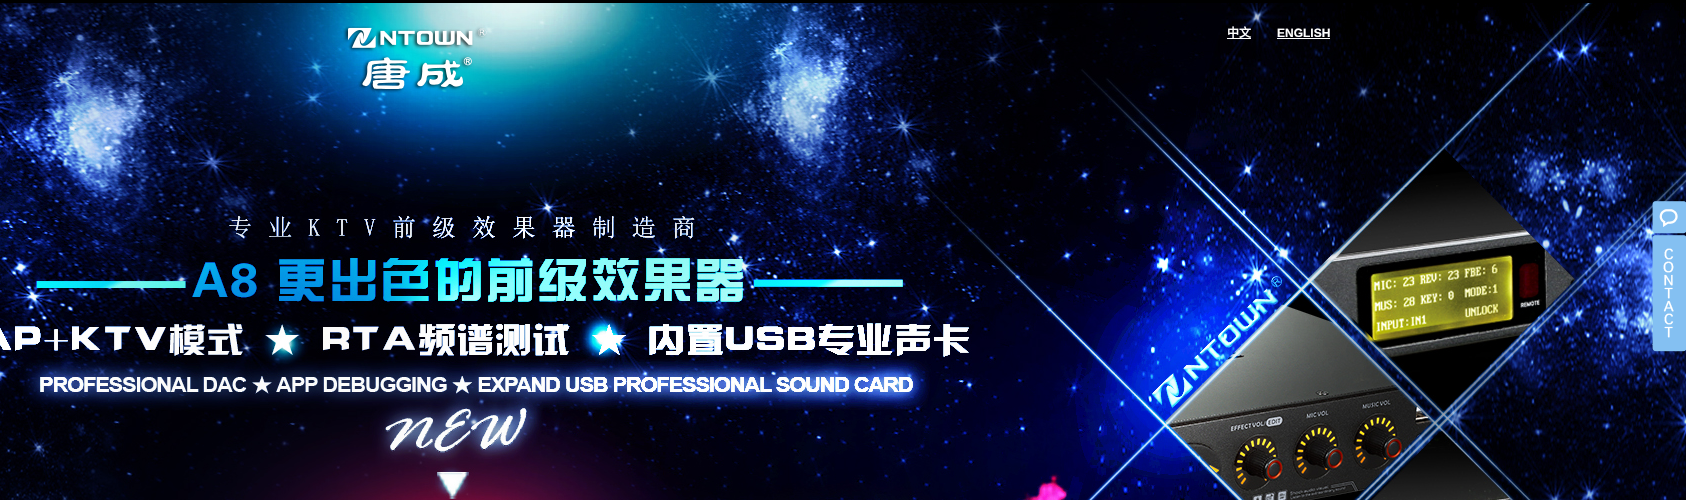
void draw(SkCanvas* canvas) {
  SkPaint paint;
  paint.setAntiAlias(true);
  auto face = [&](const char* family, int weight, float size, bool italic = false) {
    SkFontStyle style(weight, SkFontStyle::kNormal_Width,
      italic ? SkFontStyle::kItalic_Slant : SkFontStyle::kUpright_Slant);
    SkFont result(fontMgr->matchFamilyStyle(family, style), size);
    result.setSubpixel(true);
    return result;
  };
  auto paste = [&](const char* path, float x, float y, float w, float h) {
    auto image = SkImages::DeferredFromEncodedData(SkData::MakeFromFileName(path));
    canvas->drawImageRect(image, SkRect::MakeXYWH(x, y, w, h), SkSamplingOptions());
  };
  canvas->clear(0xff000000);
  paste("img/1.png", 0, 3, 1686, 497);
  paste("img/2.png", 343, 26, 144, 67);
  paint.setColor(0xffffffff);
  canvas->drawRect(SkRect::MakeXYWH(1227, 38, 24, 1), paint);
  canvas->drawRect(SkRect::MakeXYWH(1277, 38, 53, 1), paint);
  paste("img/3.png", 1652, 201, 34, 151);
  auto f0 = face("Noto Sans CJK SC", 700, 12);
  canvas->drawString("中文", 1227, 37, f0, paint);
  auto f1 = face("Liberation Sans", 700, 12);
  canvas->drawString("ENGLISH", 1277, 37, f1, paint);
}
